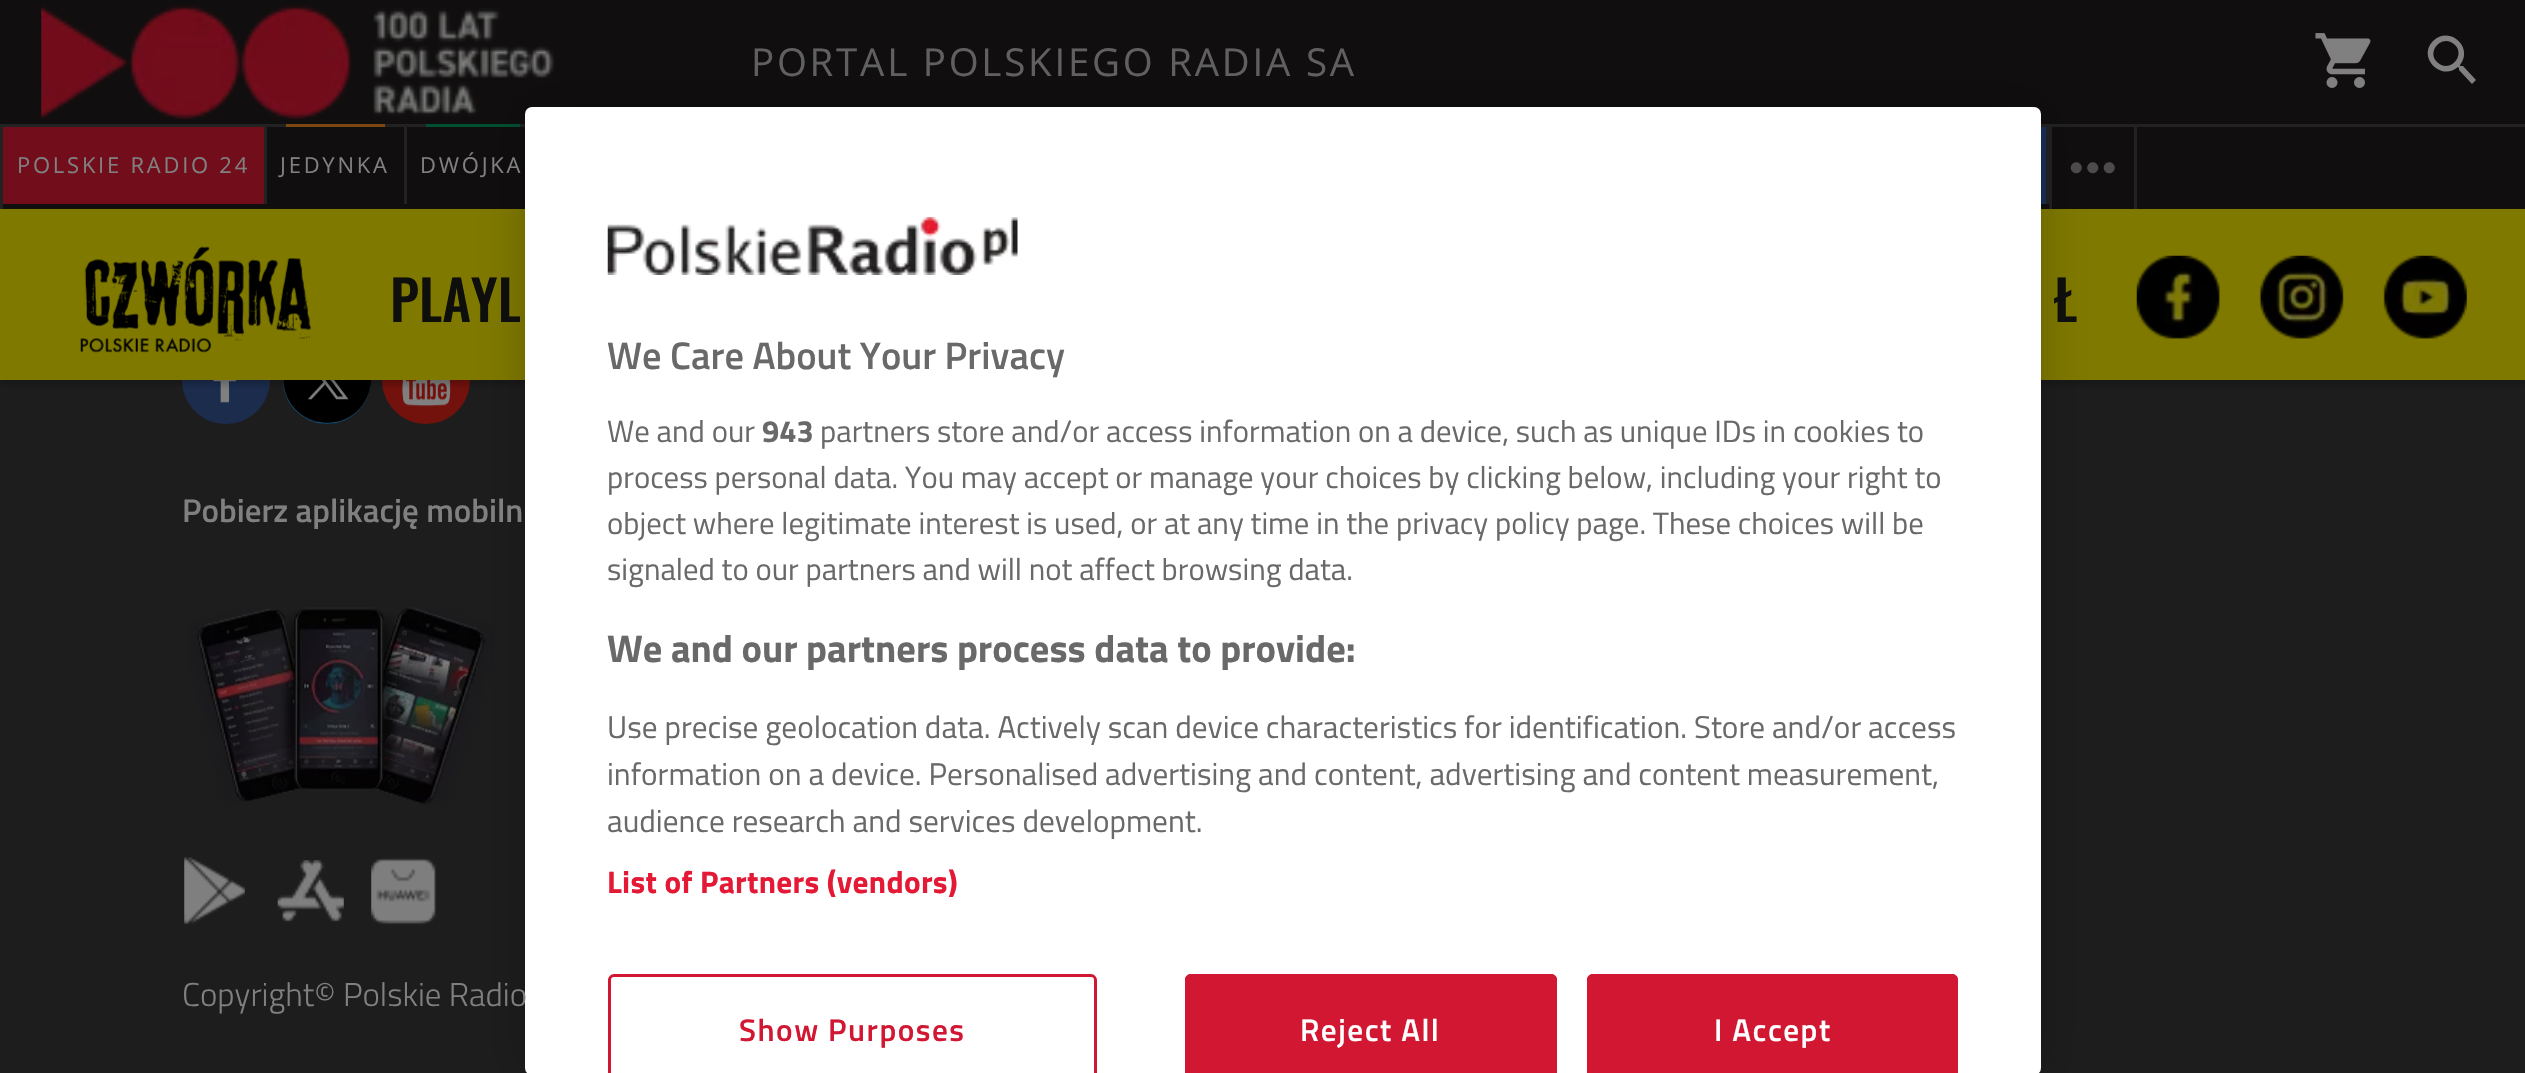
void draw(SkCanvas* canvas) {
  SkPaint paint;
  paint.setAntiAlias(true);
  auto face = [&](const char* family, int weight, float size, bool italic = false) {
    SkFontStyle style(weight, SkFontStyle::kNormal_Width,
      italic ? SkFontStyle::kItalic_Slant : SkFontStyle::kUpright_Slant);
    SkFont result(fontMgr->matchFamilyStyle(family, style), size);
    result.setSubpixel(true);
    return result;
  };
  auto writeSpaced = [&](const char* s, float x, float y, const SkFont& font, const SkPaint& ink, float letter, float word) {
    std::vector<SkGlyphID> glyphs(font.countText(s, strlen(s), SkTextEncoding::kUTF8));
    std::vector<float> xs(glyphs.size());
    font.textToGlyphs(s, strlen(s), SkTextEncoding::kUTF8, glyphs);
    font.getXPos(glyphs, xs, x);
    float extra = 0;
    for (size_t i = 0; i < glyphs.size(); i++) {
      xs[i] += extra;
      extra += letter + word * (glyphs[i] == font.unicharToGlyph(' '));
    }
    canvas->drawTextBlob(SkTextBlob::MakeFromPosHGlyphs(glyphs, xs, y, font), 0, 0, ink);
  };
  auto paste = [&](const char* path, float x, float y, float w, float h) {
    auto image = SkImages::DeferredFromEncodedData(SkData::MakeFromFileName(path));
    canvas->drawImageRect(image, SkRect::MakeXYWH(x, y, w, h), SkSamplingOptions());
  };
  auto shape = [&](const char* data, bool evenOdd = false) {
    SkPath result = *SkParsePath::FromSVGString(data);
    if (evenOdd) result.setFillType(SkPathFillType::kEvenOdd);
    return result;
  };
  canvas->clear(0xff1d1d1d);
  paint.setColor(0xff1b2c4d);
  canvas->drawCircle(226, 380, 44, paint);
  paste("img/8.png", 213, 380, 24, 23);
  paint.setColor(0xff0f5179);
  canvas->drawCircle(327, 380, 44, paint);
  paste("img/9.png", 283, 380, 89, 44);
  paint.setColor(0xff73110c);
  canvas->drawCircle(426, 380, 44, paint);
  paste("img/10.png", 402, 380, 49, 27);
  paint.setColor(0x33000000);
  paint.setMaskFilter(SkMaskFilter::MakeBlur(kNormal_SkBlurStyle, 3));
  canvas->drawRect(SkRect::MakeXYWH(0, 6, 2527, 379), paint);
  paint.setMaskFilter(nullptr);
  paint.setColor(0xff100e0e);
  canvas->drawRect(SkRect::MakeXYWH(0, 0, 2525, 209), paint);
  paint.setColor(0xff222222);
  canvas->drawRect(SkRect::MakeXYWH(0, 124, 2525, 3), paint);
  paste("img/1.png", 41, 5, 514, 114);
  paste("img/2.png", 2315, 33, 56, 55);
  paint.setColor(0xff808080);
  canvas->drawPath(shape("M2437 62C2449 74 2466 56 2455 45C2443 33 2426 51 2437 62ZM2463 66L2476 80L2472 84L2459 70V68L2458 67C2441 82 2417 57 2433 41C2450 25 2474 48 2460 65V66Z"), paint);
  {
    const struct { float x, y, w, h; SkColor color; } items[] = {
      {0, 127, 3, 82, 0xff222222},
      {3, 127, 261, 77, 0xff720d1b},
      {264, 127, 3, 77, 0xff222222},
      {404, 127, 3, 77, 0xff222222},
      {286, 124, 99, 3, 0xff7b470f},
      {426, 124, 94, 3, 0xff004f31},
      {2041, 127, 5, 77, 0xff182e5a},
      {2046, 127, 3, 77, 0xff222222},
      {2134, 127, 3, 82, 0xff222222},
      {2049, 127, 3, 82, 0xff222222},
    };
    for (auto [x, y, w, h, color] : items) {
      paint.setColor(color);
      canvas->drawRect(SkRect::MakeXYWH(x, y, w, h), paint);
    }
  }
  paste("img/3.png", 2070, 162, 45, 12);
  paint.setColor(0xff807900);
  canvas->drawRect(SkRect::MakeXYWH(0, 209, 2525, 171), paint);
  paste("img/4.png", 80, 246, 231, 107);
  paste("img/5.png", 2136, 255, 84, 84);
  paste("img/6.png", 2259, 255, 85, 84);
  paste("img/7.png", 2383, 255, 84, 84);
  paste("img/11.png", 186, 607, 309, 199);
  paste("img/12.png", 184, 857, 61, 68);
  paste("img/13.png", 277, 860, 67, 62);
  paste("img/14.png", 371, 857, 65, 68);
  paint.setColor(0x33000000);
  paint.setMaskFilter(SkMaskFilter::MakeBlur(kNormal_SkBlurStyle, 25));
  canvas->drawRoundRect(SkRect::MakeXYWH(525, 107, 1516, 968), 7, 7, paint);
  paint.setMaskFilter(nullptr);
  paint.setColor(0xffffffff);
  canvas->drawRoundRect(SkRect::MakeXYWH(525, 107, 1516, 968), 7, 7, paint);
  paste("img/15.png", 607, 217, 411, 58);
  paint.setColor(0xffd21733);
  canvas->drawPath(shape("M614 974C611 974 608 977 608 980V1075H611V980C611 978 612 977 614 977H1091C1093 977 1094 978 1094 980V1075H1097V980C1097 977 1094 974 1091 974Z"), paint);
  canvas->drawPath(shape("M1191 974H1551C1554.5 974 1557 976.5 1557 980V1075H1185V980C1185 976.5 1187.5 974 1191 974Z"), paint);
  canvas->drawPath(shape("M1191 974C1188 974 1185 977 1185 980V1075H1188V980C1188 978 1189 977 1191 977H1551C1553 977 1554 978 1554 980V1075H1557V980C1557 977 1554 974 1551 974Z"), paint);
  canvas->drawPath(shape("M1593 974H1952C1955.5 974 1958 976.5 1958 980V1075H1587V980C1587 976.5 1589.5 974 1593 974Z"), paint);
  canvas->drawPath(shape("M1593 974C1590 974 1587 977 1587 980V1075H1590V980C1590 978 1591 977 1593 977H1952C1954 977 1955 978 1955 980V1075H1958V980C1958 977 1955 974 1952 974Z"), paint);
  auto f0 = face("Open Sans", 400, 38.5f);
  paint.setColor(0xff606060);
  writeSpaced("PORTAL POLSKIEGO RADIA SA", 751, 76, f0, paint, 2.75f, 0);
  auto f1 = face("Open Sans", 400, 22);
  paint.setColor(0xff808080);
  {
    const struct { const char* s; float x, y; } items[] = {
      {"POLSKIE RADIO 24", 17, 173},
      {"JEDYNKA", 280, 173},
      {"DWÓJKA", 420, 173},
    };
    for (auto [s, x, y] : items) {
      writeSpaced(s, x, y, f1, paint, 2.75f, 0);
    }
  }
  auto f2 = face("Oswald", 500, 55);
  paint.setColor(0xff0e0e0d);
  canvas->drawString("PLAYL", 390, 322, f2, paint);
  canvas->drawString("Ł", 2054, 322, f2, paint);
  auto f3 = face("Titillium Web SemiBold", 600, 33);
  paint.setColor(0xff808080);
  canvas->drawString("Pobierz aplikację mobiln", 182, 522, f3, paint);
  auto f4 = face("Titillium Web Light", 300, 33);
  canvas->drawString("Copyright© Polskie Radio", 182, 1006, f4, paint);
  auto f5 = face("Titillium Web SemiBold", 600, 38.5f);
  paint.setColor(0xff696969);
  canvas->drawString("We Care About Your Privacy", 607, 369, f5, paint);
  auto f6 = face("Titillium Web", 400, 30.8f);
  canvas->drawString("We and our", 607, 442, f6, paint);
  auto f7 = face("Titillium Web", 700, 30.8f);
  canvas->drawString("943", 762, 442, f7, paint);
  {
    const struct { const char* s; float x, y; } items[] = {
      {"partners store and/or access information on a device, such as unique IDs in cookies to", 820, 442},
      {"process personal data. You may accept or manage your choices by clicking below, including your right to", 607, 488},
      {"object where legitimate interest is used, or at any time in the privacy policy page. These choices will be", 607, 534},
      {"signaled to our partners and will not affect browsing data.", 607, 580},
    };
    for (auto [s, x, y] : items) {
      canvas->drawString(s, x, y, f6, paint);
    }
  }
  auto f8 = face("Titillium Web", 700, 38.5f);
  canvas->drawString("We and our partners process data to provide:", 607, 662, f8, paint);
  auto f9 = face("Titillium Web", 400, 31.3f);
  {
    const struct { const char* s; float x, y; } items[] = {
      {"Use precise geolocation data. Actively scan device characteristics for identification. Store and/or access", 607, 738},
      {"information on a device. Personalised advertising and content, advertising and content measurement,", 607, 785},
      {"audience research and services development.", 607, 832},
    };
    for (auto [s, x, y] : items) {
      canvas->drawString(s, x, y, f9, paint);
    }
  }
  auto f10 = face("Titillium Web", 700, 31.3f);
  paint.setColor(0xffe31936);
  writeSpaced("List of Partners (vendors)", 607, 893, f10, paint, 0.3f, 0);
  auto f11 = face("Titillium Web SemiBold", 600, 31.3f);
  paint.setColor(0xffd21733);
  writeSpaced("Show Purposes", 739, 1041, f11, paint, 1.5f, 0);
  paint.setColor(0xffffffff);
  writeSpaced("Reject All", 1300, 1041, f11, paint, 1.5f, 0);
  writeSpaced("I Accept", 1714, 1041, f11, paint, 1.5f, 0);
}
